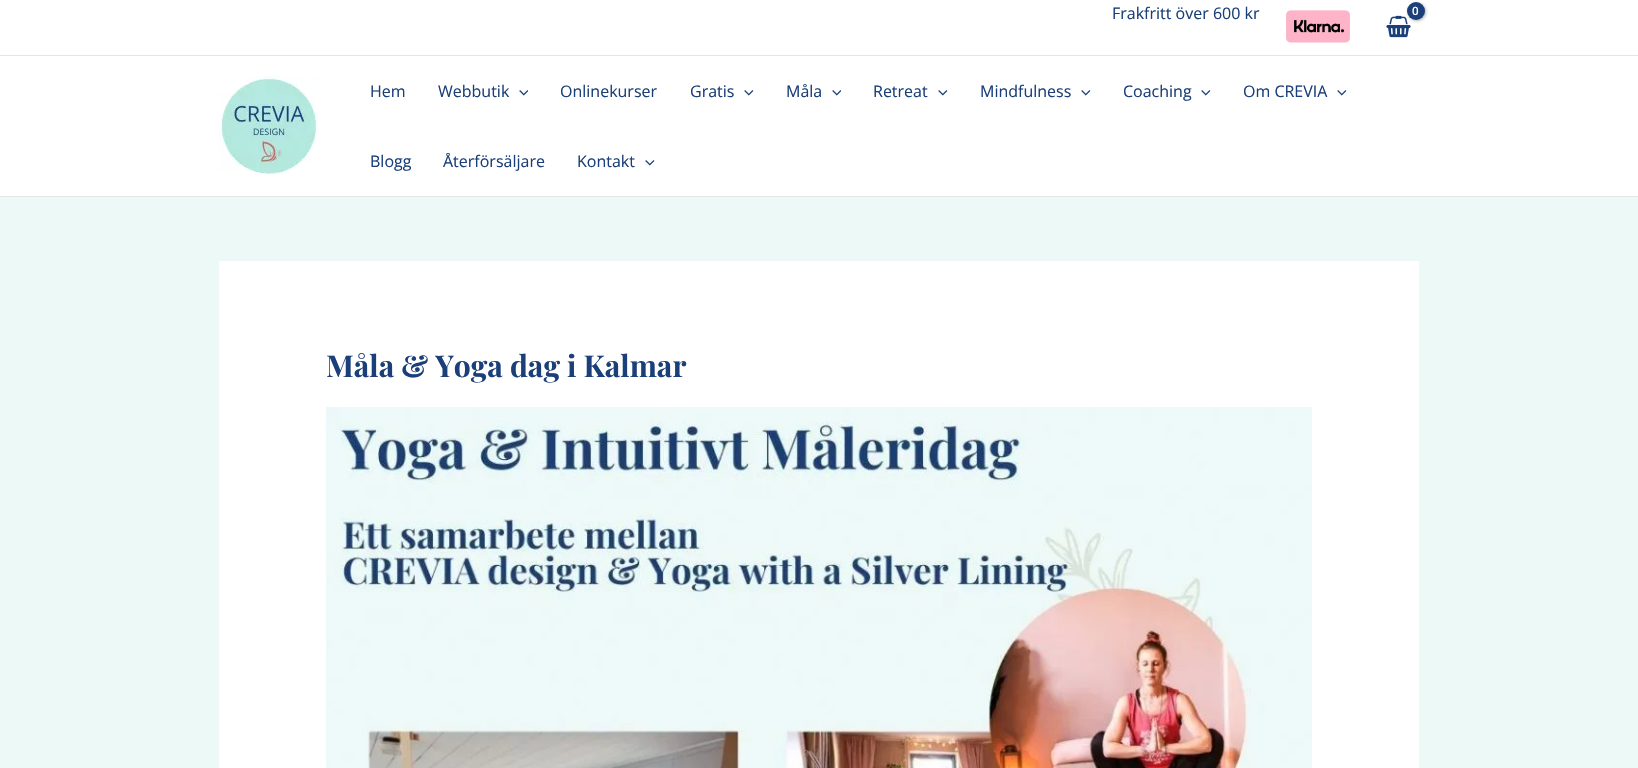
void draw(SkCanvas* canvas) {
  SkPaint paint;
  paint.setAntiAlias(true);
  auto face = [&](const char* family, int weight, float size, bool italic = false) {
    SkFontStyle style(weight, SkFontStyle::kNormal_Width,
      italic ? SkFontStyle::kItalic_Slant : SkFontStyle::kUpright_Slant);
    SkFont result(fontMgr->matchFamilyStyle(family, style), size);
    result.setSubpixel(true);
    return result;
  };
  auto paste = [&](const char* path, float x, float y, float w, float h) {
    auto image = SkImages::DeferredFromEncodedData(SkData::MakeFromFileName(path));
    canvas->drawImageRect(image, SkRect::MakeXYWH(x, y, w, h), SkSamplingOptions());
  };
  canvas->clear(0xffecf9f7);
  paint.setColor(0xffffffff);
  canvas->drawRect(SkRect::MakeXYWH(0, 0, 1638, 55), paint);
  paint.setColor(0xffe5e5e5);
  canvas->drawRect(SkRect::MakeXYWH(0, 55, 1638, 1), paint);
  paste("img/1.png", 1286, 10, 64, 33);
  paste("img/2.png", 1386, 15, 25, 23);
  paint.setColor(0x4d000000);
  paint.setMaskFilter(SkMaskFilter::MakeBlur(kNormal_SkBlurStyle, 1.5f));
  canvas->drawRoundRect(SkRect::MakeXYWH(1408, 3, 18, 18), 9, 9, paint);
  paint.setMaskFilter(nullptr);
  paint.setColor(0xff1b4079);
  canvas->drawCircle(1416, 11, 9, paint);
  paint.setColor(0xffffffff);
  canvas->drawRect(SkRect::MakeXYWH(0, 56, 1638, 140), paint);
  paint.setColor(0xffe5e5e5);
  canvas->drawRect(SkRect::MakeXYWH(0, 196, 1638, 1), paint);
  paste("img/3.png", 219, 76, 99, 99);
  paste("img/4.png", 519, 90, 9, 6);
  paste("img/5.png", 744, 90, 10, 6);
  paste("img/4.png", 832, 90, 9, 6);
  paste("img/5.png", 938, 90, 10, 6);
  paste("img/5.png", 1081, 90, 10, 6);
  paste("img/5.png", 1201, 90, 10, 6);
  paste("img/5.png", 1337, 90, 10, 6);
  paste("img/5.png", 645, 160, 10, 6);
  paint.setColor(0xffffffff);
  canvas->drawRect(SkRect::MakeXYWH(219, 261, 1200, 507), paint);
  paste("img/6.png", 326, 407, 986, 361);
  auto f0 = face("Open Sans", 400, 16);
  paint.setColor(0xff1b4079);
  canvas->drawString("Frakfritt över 600 kr", 1112, 19, f0, paint);
  auto f1 = face("Open Sans", 700, 11);
  paint.setColor(0xffffffff);
  canvas->drawString("0", 1412, 15, f1, paint);
  paint.setColor(0xff1b4079);
  {
    const struct { const char* s; float x, y; } items[] = {
      {"Hem", 370, 97},
      {"Webbutik", 438, 97},
      {"Onlinekurser", 560, 97},
      {"Gratis", 690, 97},
      {"Måla", 786, 97},
      {"Retreat", 873, 97},
      {"Mindfulness", 980, 97},
      {"Coaching", 1123, 97},
      {"Om CREVIA", 1243, 97},
      {"Blogg", 370, 167},
      {"Återförsäljare", 443, 167},
      {"Kontakt", 577, 167},
    };
    for (auto [s, x, y] : items) {
      canvas->drawString(s, x, y, f0, paint);
    }
  }
  auto f2 = face("Playfair Display", 700, 30);
  canvas->drawString("Måla & Yoga dag i Kalmar", 326, 377, f2, paint);
}
